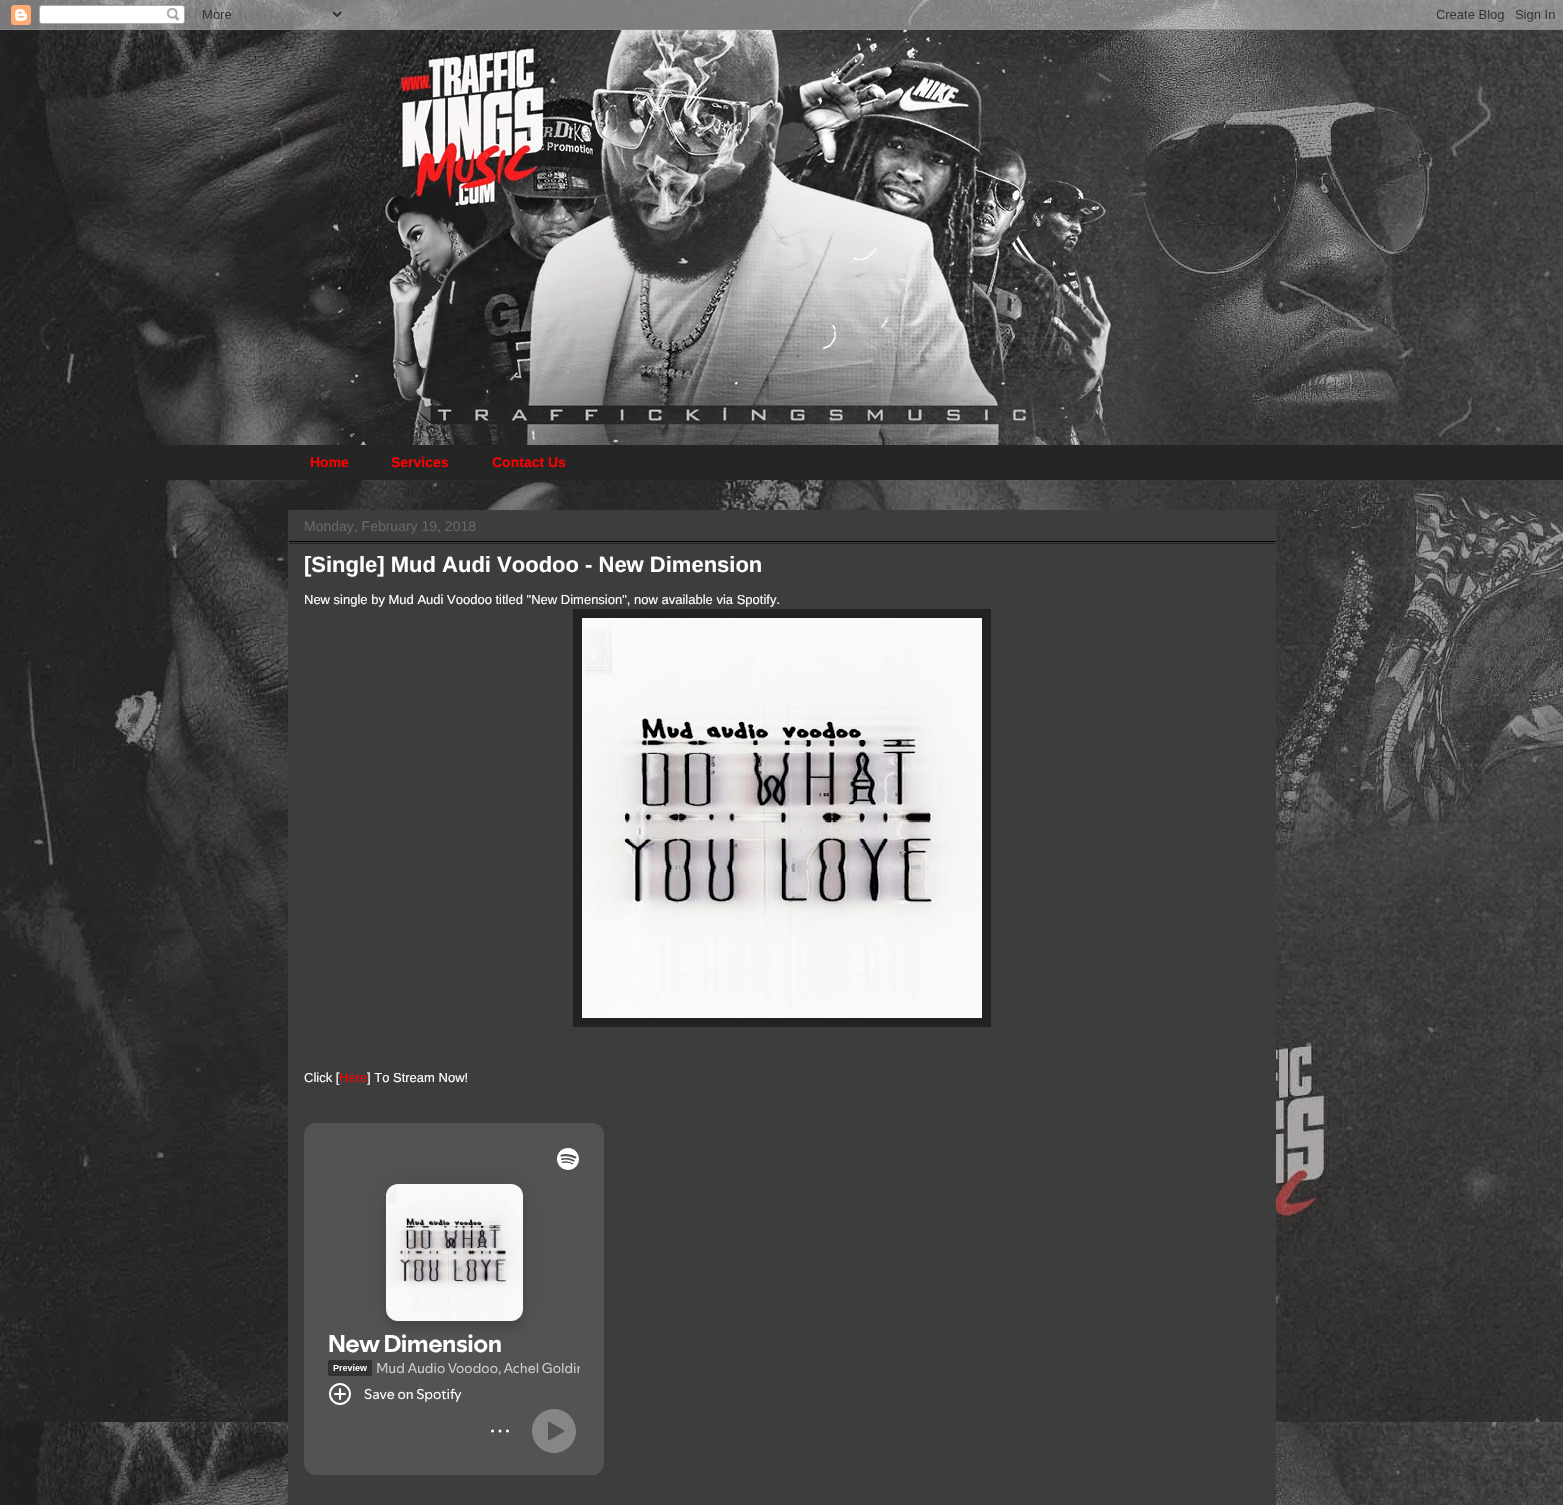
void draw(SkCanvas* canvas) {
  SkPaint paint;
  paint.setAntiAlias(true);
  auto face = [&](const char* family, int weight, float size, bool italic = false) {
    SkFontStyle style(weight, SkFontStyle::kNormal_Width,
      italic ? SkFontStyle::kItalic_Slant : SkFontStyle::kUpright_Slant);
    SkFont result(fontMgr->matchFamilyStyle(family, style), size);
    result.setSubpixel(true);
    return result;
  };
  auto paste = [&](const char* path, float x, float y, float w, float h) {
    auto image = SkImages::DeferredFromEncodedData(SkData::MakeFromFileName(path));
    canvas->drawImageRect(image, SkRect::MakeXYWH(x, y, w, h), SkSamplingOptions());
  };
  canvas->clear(0xffffffff);
  paste("img/1.png", 0, 0, 1563, 1505);
  paste("img/2.png", 0, 0, 1563, 30);
  paste("img/3.png", 290, 30, 896, 415);
  {
    const struct { float x, y, w, h; SkColor color; } items[] = {
      {0, 445, 1563, 35, 0xff262525},
      {288, 510, 988, 995, 0xff3d3d3d},
      {289, 541, 986, 1, 0xff000000},
      {289, 543, 986, 1, 0xff222222},
      {573, 609, 418, 418, 0xff222222},
    };
    for (auto [x, y, w, h, color] : items) {
      paint.setColor(color);
      canvas->drawRect(SkRect::MakeXYWH(x, y, w, h), paint);
    }
  }
  paste("img/4.png", 582, 618, 400, 400);
  paste("img/5.png", 304, 1123, 300, 352);
  auto f0 = face("Liberation Sans", 700, 14);
  paint.setColor(0xffff0000);
  {
    const struct { const char* s; float x, y; } items[] = {
      {"Home", 310, 467},
      {"Services", 391, 467},
      {"Contact Us", 492, 467},
    };
    for (auto [s, x, y] : items) {
      canvas->drawString(s, x, y, f0, paint);
    }
  }
  auto f1 = face("Liberation Sans", 400, 14);
  paint.setColor(0xff666666);
  canvas->drawString("Monday, February 19, 2018", 304, 531, f1, paint);
  auto f2 = face("Liberation Sans", 700, 22);
  paint.setColor(0xffffffff);
  canvas->drawString("[Single] Mud Audi Voodoo - New Dimension", 304, 572, f2, paint);
  auto f3 = face("Liberation Sans", 400, 13);
  canvas->drawString("New single by Mud Audi Voodoo titled \"New Dimension\", now available via Spotify.", 304, 604, f3, paint);
  canvas->drawString("Click [", 304, 1082, f3, paint);
  paint.setColor(0xffff0000);
  canvas->drawString("Here", 339, 1082, f3, paint);
  paint.setColor(0xffffffff);
  canvas->drawString("] To Stream Now!", 367, 1082, f3, paint);
}
